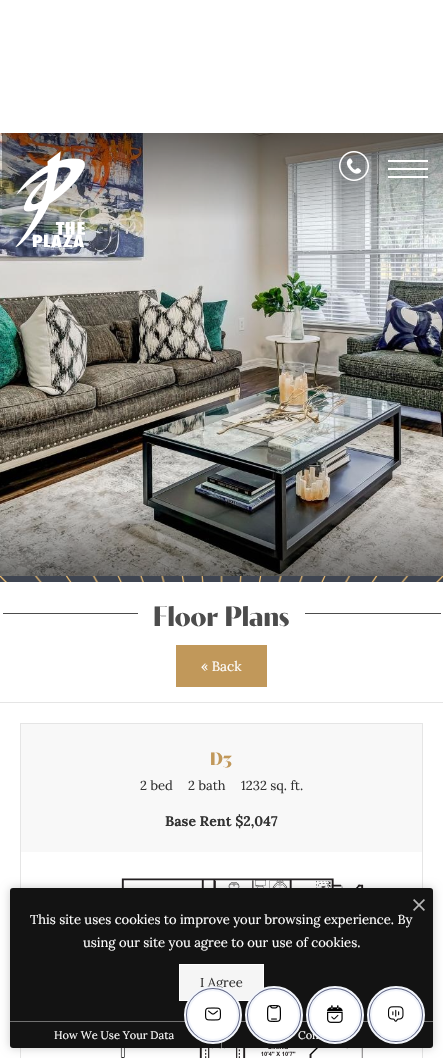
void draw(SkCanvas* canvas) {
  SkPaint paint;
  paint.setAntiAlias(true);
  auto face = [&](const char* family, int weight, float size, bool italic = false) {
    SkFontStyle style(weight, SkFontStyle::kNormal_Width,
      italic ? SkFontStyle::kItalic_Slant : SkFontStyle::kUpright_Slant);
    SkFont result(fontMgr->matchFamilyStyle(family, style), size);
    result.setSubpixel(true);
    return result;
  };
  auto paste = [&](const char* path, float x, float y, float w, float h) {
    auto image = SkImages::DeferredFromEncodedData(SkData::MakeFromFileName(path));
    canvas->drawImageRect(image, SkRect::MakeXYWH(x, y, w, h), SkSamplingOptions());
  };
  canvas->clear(0xffffffff);
  paste("img/3.png", 0, 133, 443, 443);
  paste("img/4.png", 2, 133, 441, 440);
  paste("img/1.png", 15, 151, 70, 96);
  paste("img/2.png", 339, 151, 30, 30);
  {
    const struct { float x, y, w, h; SkColor color; } items[] = {
      {388, 160, 40, 2, 0xffffffff},
      {388, 168, 40, 2, 0xffffffff},
      {388, 176, 40, 2, 0xffffffff},
      {0, 702, 443, 1, 0xffe5e5e5},
    };
    for (auto [x, y, w, h, color] : items) {
      paint.setColor(color);
      canvas->drawRect(SkRect::MakeXYWH(x, y, w, h), paint);
    }
  }
  {
    const SkColor colors[] = {0x00000000, 0x80000000};
    const float stops[] = {0, 1};
    const SkPoint ends[] = {{222, 488}, {222, 576}};
    paint.setShader(SkGradientShader::MakeLinear(ends, colors, stops, 2, SkTileMode::kClamp));
    paint.setAlpha(255);
  }
  canvas->drawRect(SkRect::MakeXYWH(0, 492, 443, 84), paint);
  paste("img/5.png", 0, 576, 443, 6);
  paint.setShader(nullptr);
  {
    const struct { float x, y, w, h; SkColor color; } items[] = {
      {3, 613, 135, 1, 0xff4c4c4c},
      {305, 613, 136, 1, 0xff4c4c4c},
      {176, 645, 91, 42, 0xffc1985a},
    };
    for (auto [x, y, w, h, color] : items) {
      paint.setColor(color);
      canvas->drawRect(SkRect::MakeXYWH(x, y, w, h), paint);
    }
  }
  paint.setStroke(true);
  paint.setStrokeWidth(1);
  paint.setColor(0xffe5e5e5);
  canvas->drawRect(SkRect::MakeXYWH(20.5f, 723.5f, 402, 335), paint);
  paint.setStroke(false);
  paint.setColor(0xfff8f8f8);
  canvas->drawRect(SkRect::MakeXYWH(21, 724, 401, 128), paint);
  paste("img/6.png", 79, 878, 285, 180);
  paint.setColor(0x33000000);
  paint.setMaskFilter(SkMaskFilter::MakeBlur(kNormal_SkBlurStyle, 5));
  canvas->drawRoundRect(SkRect::MakeXYWH(10, 888, 423, 160), 3, 3, paint);
  paint.setMaskFilter(nullptr);
  paint.setColor(0xff131313);
  canvas->drawRoundRect(SkRect::MakeXYWH(10, 888, 423, 160), 3, 3, paint);
  paste("img/7.png", 413, 899, 12, 12);
  paint.setColor(0xfff5f5f5);
  canvas->drawRect(SkRect::MakeXYWH(179.5f, 964.5f, 84, 36), paint);
  paint.setStroke(true);
  paint.setColor(0xffffffff);
  canvas->drawRect(SkRect::MakeXYWH(179.5f, 964.5f, 84, 36), paint);
  paint.setStroke(false);
  paint.setColor(0xff717171);
  canvas->drawRect(SkRect::MakeXYWH(10, 1021, 423, 1), paint);
  canvas->drawRect(SkRect::MakeXYWH(221, 1042, 1, 6), paint);
  paint.setColor(0xff646987);
  canvas->drawCircle(396, 1015, 28, paint);
  paint.setStroke(true);
  paint.setStrokeWidth(2);
  paint.setColor(0xfff3f6fc);
  canvas->drawCircle(396, 1015, 28, paint);
  paint.setStroke(false);
  paint.setColor(0xffffffff);
  canvas->drawCircle(396, 1015, 25, paint);
  paint.setStroke(true);
  paint.setColor(0xfff3f6fc);
  canvas->drawCircle(396, 1015, 25, paint);
  paste("img/11.png", 388, 1006, 16, 16);
  auto f0 = face("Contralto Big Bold", 700, 28);
  paint.setStroke(false);
  paint.setColor(0xff4c4c4c);
  canvas->drawString("Floor Plans", 153, 626, f0, paint);
  auto f1 = face("Lora", 400, 13.5f);
  paint.setColor(0xffffffff);
  canvas->drawString("« Back", 201, 671, f1, paint);
  auto f2 = face("Contralto Big Bold", 700, 18);
  paint.setColor(0xffc1985a);
  canvas->drawString("D3", 210, 765, f2, paint);
  auto f3 = face("Lora", 400, 13);
  paint.setColor(0xff333333);
  {
    const struct { const char* s; float x, y; } items[] = {
      {"2 bed", 140, 790},
      {"2 bath", 188, 790},
      {"1232 sq. ft.", 241, 790},
    };
    for (auto [s, x, y] : items) {
      canvas->drawString(s, x, y, f3, paint);
    }
  }
  auto f4 = face("Lora", 700, 14);
  canvas->drawString("Base Rent $2,047", 165, 826, f4, paint);
  paint.setColor(0xffffffff);
  canvas->drawString("This site uses cookies to improve your browsing experience. By", 30, 924, f3, paint);
  canvas->drawString("using our site you agree to our use of cookies.", 83, 947, f3, paint);
  paint.setColor(0xff333333);
  canvas->drawString("I Agree", 200, 987, f3, paint);
  auto f5 = face("Lora", 400, 11);
  paint.setColor(0xffffffff);
  canvas->drawString("How We Use Your Data", 54, 1039, f5, paint);
  canvas->drawString("Con", 298, 1039, f5, paint);
  paint.setColor(0xff646987);
  canvas->drawCircle(213, 1015, 28, paint);
  paint.setStroke(true);
  paint.setColor(0xfff3f6fc);
  canvas->drawCircle(213, 1015, 28, paint);
  paint.setStroke(false);
  paint.setColor(0xffffffff);
  canvas->drawCircle(213, 1015, 25, paint);
  paint.setStroke(true);
  paint.setColor(0xfff3f6fc);
  canvas->drawCircle(213, 1015, 25, paint);
  paste("img/8.png", 205, 1007, 16, 14);
  paint.setStroke(false);
  paint.setColor(0xff646987);
  canvas->drawCircle(274, 1015, 28, paint);
  paint.setStroke(true);
  paint.setColor(0xfff3f6fc);
  canvas->drawCircle(274, 1015, 28, paint);
  paint.setStroke(false);
  paint.setColor(0xffffffff);
  canvas->drawCircle(274, 1015, 25, paint);
  paint.setStroke(true);
  paint.setColor(0xfff3f6fc);
  canvas->drawCircle(274, 1015, 25, paint);
  paste("img/9.png", 267, 1005, 14, 17);
  paint.setStroke(false);
  paint.setColor(0xff646987);
  canvas->drawCircle(335, 1015, 28, paint);
  paint.setStroke(true);
  paint.setColor(0xfff3f6fc);
  canvas->drawCircle(335, 1015, 28, paint);
  paint.setStroke(false);
  paint.setColor(0xffffffff);
  canvas->drawCircle(335, 1015, 25, paint);
  paint.setStroke(true);
  paint.setColor(0xfff3f6fc);
  canvas->drawCircle(335, 1015, 25, paint);
  paste("img/10.png", 327, 1005, 16, 18);
}
